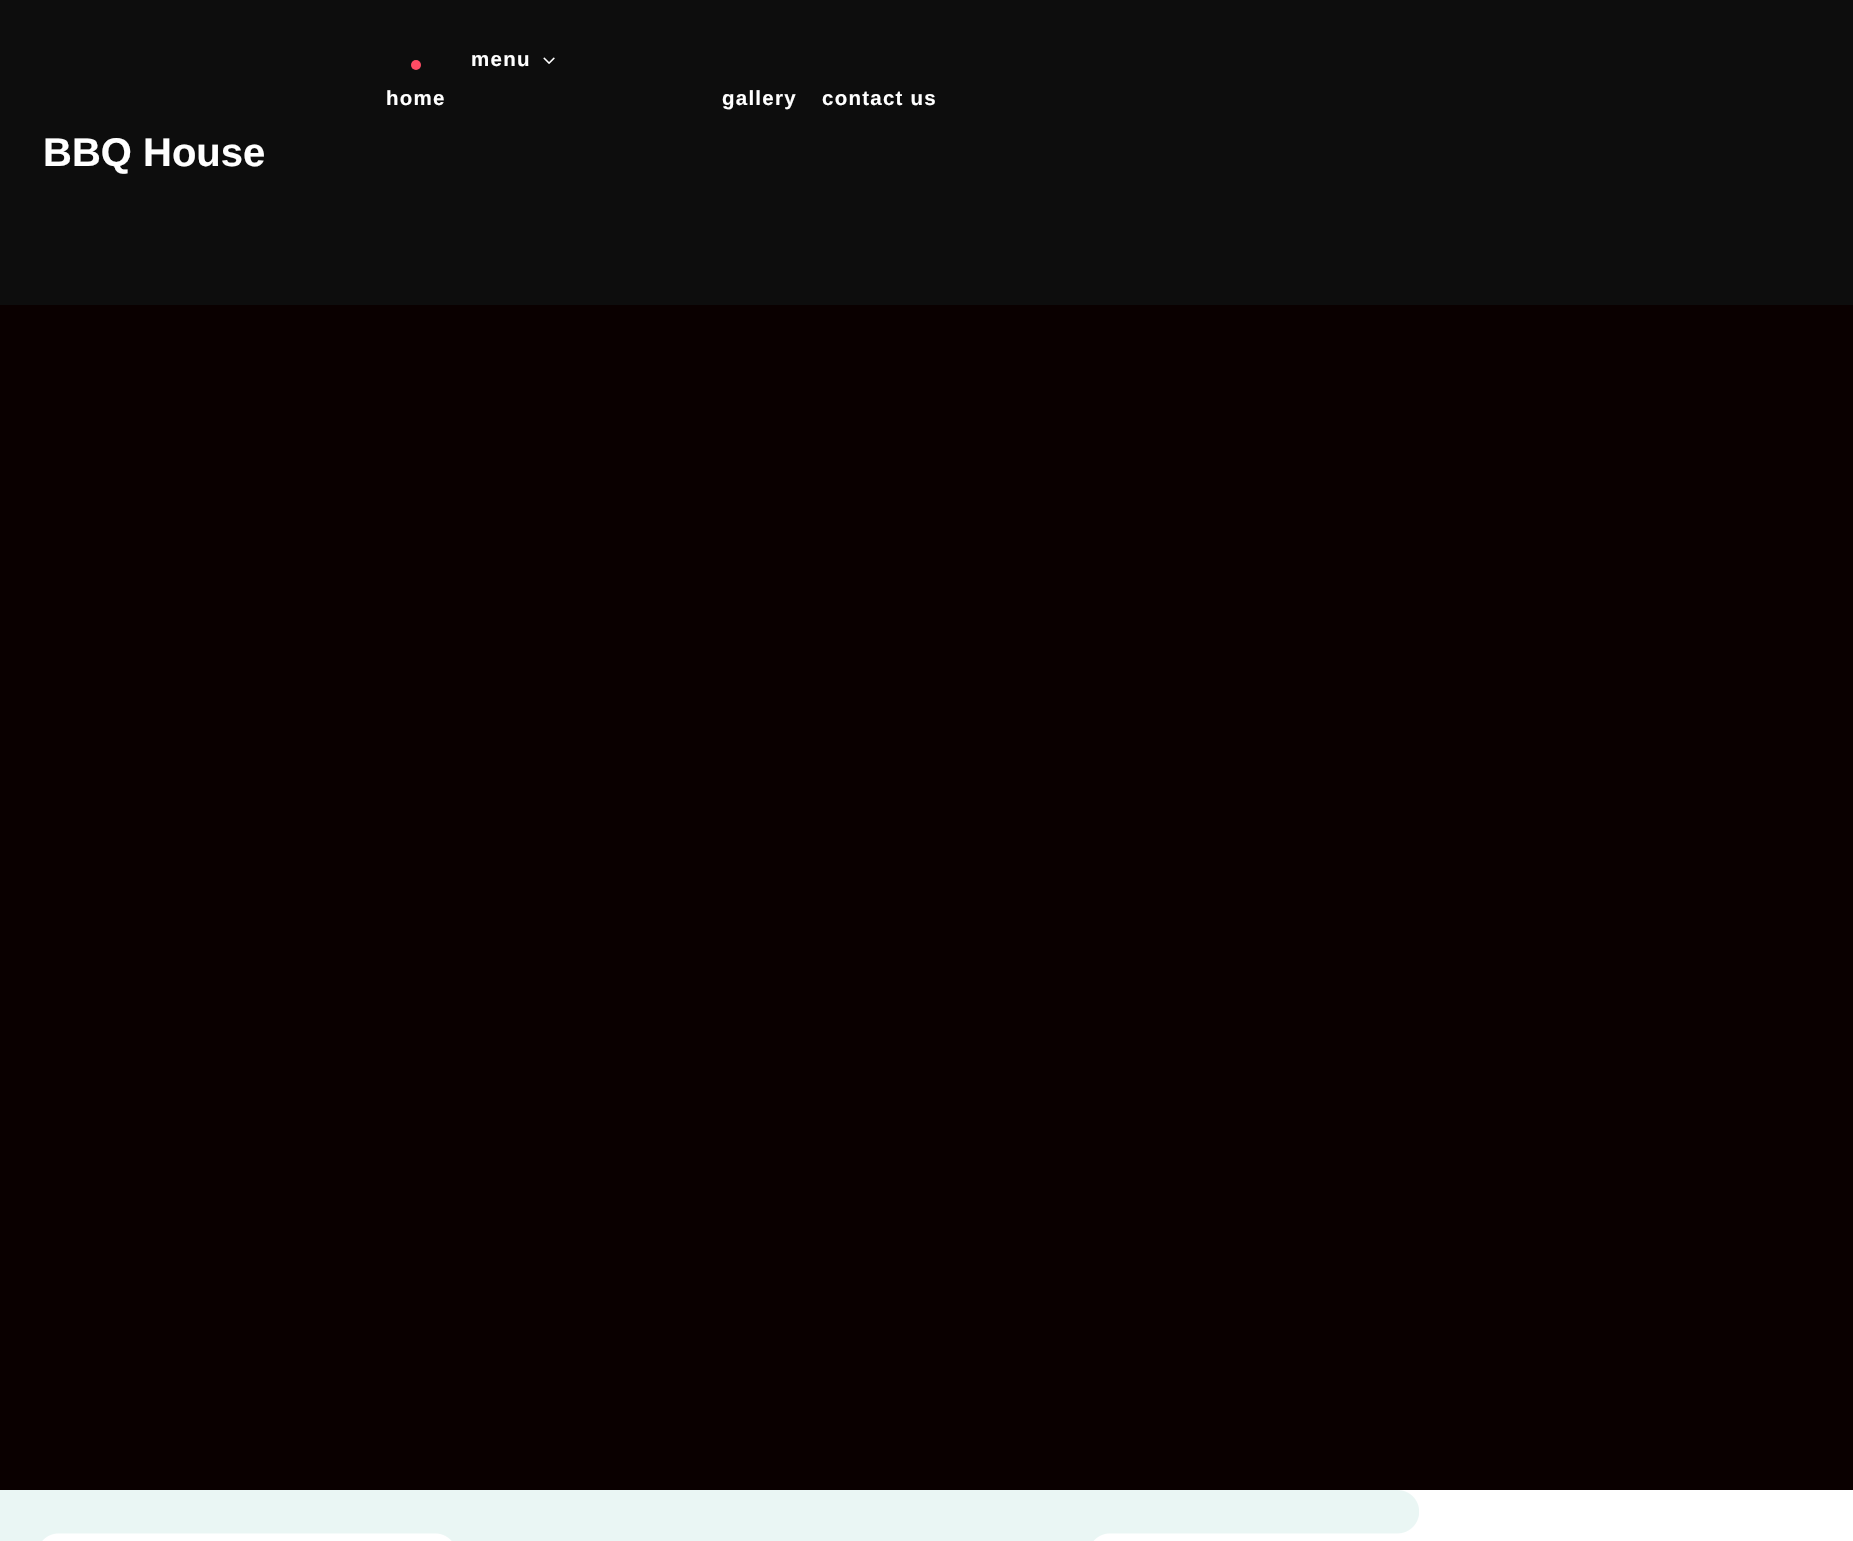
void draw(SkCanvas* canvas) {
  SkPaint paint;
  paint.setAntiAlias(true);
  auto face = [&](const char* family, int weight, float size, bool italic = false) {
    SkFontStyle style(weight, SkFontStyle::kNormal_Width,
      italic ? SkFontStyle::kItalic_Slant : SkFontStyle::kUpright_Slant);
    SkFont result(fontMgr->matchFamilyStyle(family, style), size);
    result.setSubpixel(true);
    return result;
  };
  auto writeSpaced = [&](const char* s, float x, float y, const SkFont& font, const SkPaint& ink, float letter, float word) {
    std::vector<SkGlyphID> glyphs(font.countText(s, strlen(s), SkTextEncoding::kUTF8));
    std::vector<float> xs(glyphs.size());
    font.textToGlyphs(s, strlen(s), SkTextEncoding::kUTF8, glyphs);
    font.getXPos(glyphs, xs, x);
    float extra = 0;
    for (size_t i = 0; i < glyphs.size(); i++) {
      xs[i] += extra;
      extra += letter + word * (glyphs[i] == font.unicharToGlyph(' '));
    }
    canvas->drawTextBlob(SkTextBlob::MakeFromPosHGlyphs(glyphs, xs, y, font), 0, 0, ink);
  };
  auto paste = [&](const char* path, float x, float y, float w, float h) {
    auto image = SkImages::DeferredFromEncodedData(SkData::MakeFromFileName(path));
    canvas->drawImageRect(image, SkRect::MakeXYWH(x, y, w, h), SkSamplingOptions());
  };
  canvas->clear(0xffffffff);
  paint.setColor(0xff0d0d0d);
  canvas->drawRect(SkRect::MakeXYWH(0, 0, 1853, 305), paint);
  paste("img/1.png", 543, 57, 12, 7);
  paint.setColor(0xffff4b64);
  canvas->drawCircle(416, 65, 5, paint);
  paint.setColor(0xff0a0000);
  canvas->drawRect(SkRect::MakeXYWH(0, 305, 1853, 1185), paint);
  paste("img/2.png", 0, 1490, 1419, 51);
  auto f0 = face("Liberation Sans", 700, 20.5f);
  paint.setColor(0xffffffff);
  {
    const struct { const char* s; float x, y; } items[] = {
      {"menu", 471, 66},
      {"home", 386, 105},
      {"gallery", 722, 105},
      {"contact us", 822, 105},
    };
    for (auto [s, x, y] : items) {
      writeSpaced(s, x, y, f0, paint, 1.25f, 0);
    }
  }
  auto f1 = face("Liberation Sans", 700, 40);
  canvas->drawString("BBQ House", 43, 166, f1, paint);
}
